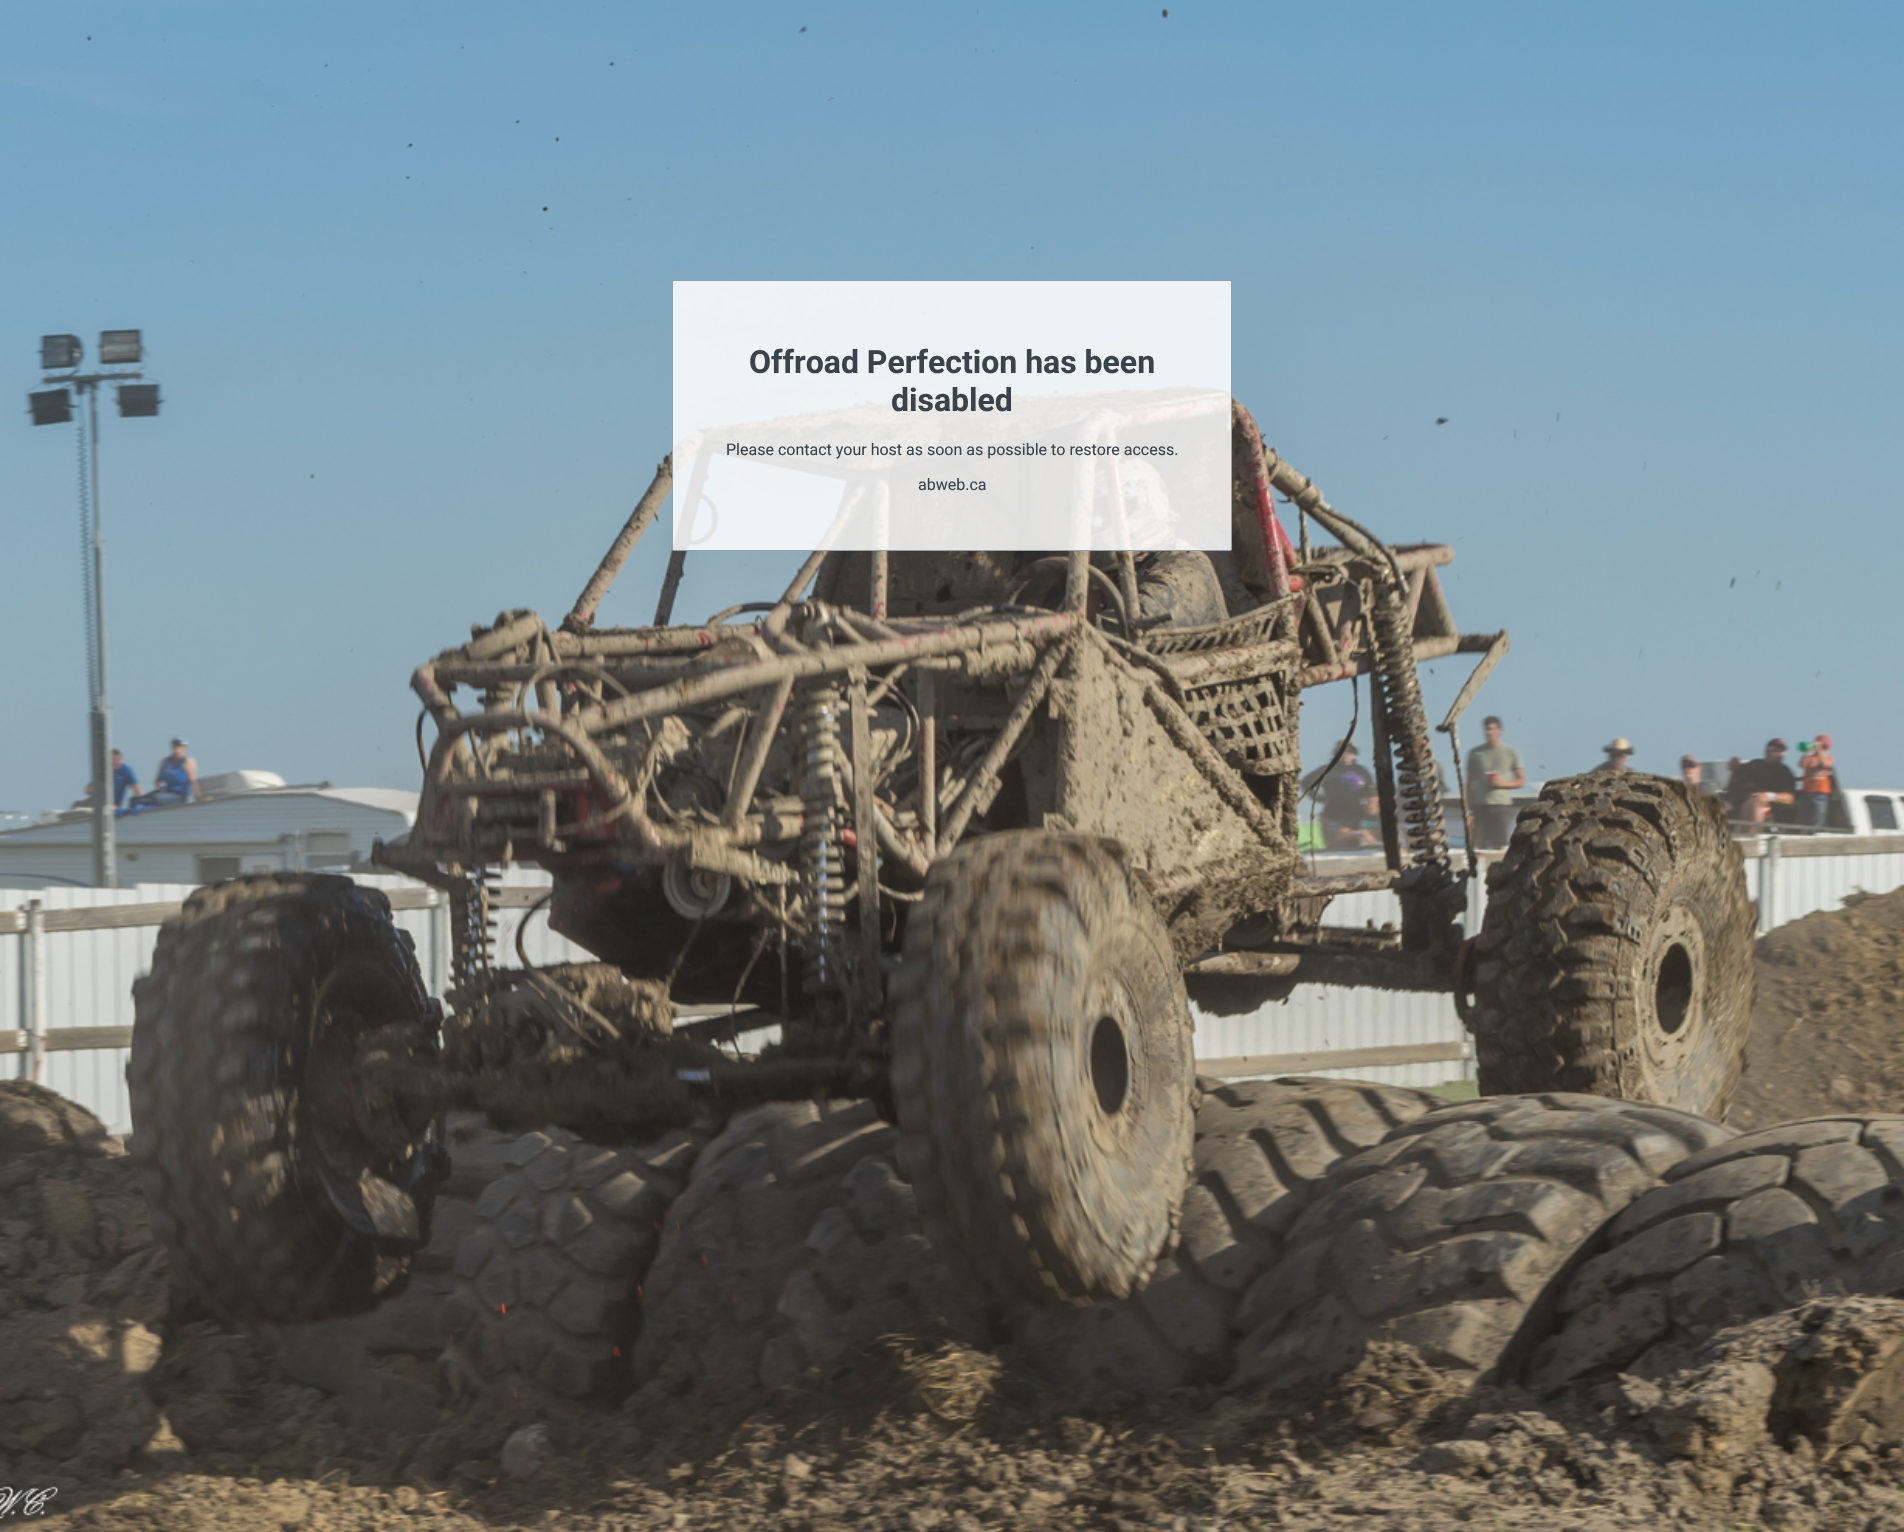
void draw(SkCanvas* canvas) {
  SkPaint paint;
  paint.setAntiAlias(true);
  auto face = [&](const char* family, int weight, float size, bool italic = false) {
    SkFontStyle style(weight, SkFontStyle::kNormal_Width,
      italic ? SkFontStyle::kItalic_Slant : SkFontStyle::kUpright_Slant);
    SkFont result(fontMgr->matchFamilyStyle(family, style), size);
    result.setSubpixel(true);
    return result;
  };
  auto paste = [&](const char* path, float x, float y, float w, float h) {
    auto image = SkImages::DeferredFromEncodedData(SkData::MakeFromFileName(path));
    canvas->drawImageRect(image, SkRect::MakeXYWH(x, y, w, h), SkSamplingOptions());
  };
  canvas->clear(0xffffffff);
  paste("img/1.png", 0, 0, 1904, 1532);
  paint.setColor(0xd9ffffff);
  canvas->drawRoundRect(SkRect::MakeXYWH(672.5f, 280.5f, 559, 270), 1.5f, 1.5f, paint);
  paint.setStroke(true);
  paint.setStrokeWidth(1);
  paint.setColor(0xff94a0ac);
  canvas->drawRoundRect(SkRect::MakeXYWH(672.5f, 280.5f, 559, 270), 1.5f, 1.5f, paint);
  auto f0 = face("Roboto", 700, 32);
  paint.setStroke(false);
  paint.setColor(0xff3a424a);
  canvas->drawString("Offroad Perfection has been", 749, 373, f0, paint);
  canvas->drawString("disabled", 891, 411, f0, paint);
  auto f1 = face("Roboto", 400, 16);
  canvas->drawString("Please contact your host as soon as possible to restore access.", 726, 455, f1, paint);
  canvas->drawString("abweb.ca", 918, 490, f1, paint);
}
